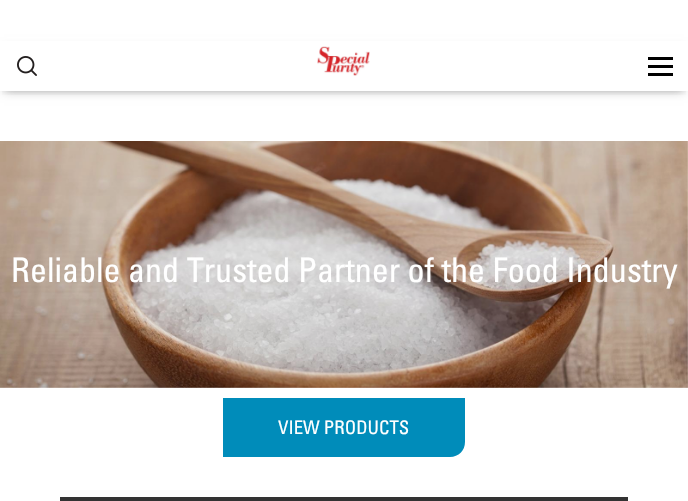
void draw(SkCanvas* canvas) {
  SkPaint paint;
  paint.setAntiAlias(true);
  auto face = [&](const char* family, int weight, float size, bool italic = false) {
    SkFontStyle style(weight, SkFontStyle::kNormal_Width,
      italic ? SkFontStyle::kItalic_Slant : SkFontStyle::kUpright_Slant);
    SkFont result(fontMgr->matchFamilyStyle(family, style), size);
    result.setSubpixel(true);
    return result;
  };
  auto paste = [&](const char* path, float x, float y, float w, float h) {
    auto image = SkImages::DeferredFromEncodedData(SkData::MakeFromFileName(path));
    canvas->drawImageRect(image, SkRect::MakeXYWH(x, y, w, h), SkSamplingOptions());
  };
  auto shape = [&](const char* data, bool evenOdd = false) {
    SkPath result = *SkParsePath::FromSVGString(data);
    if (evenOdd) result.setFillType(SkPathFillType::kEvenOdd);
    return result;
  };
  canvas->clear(0xffffffff);
  canvas->save();
  canvas->clipRect(SkRect::MakeXYWH(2, 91, 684, 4));
  paint.setColor(0x40000000);
  paint.setMaskFilter(SkMaskFilter::MakeBlur(kNormal_SkBlurStyle, 5));
  canvas->drawRect(SkRect::MakeXYWH(4, 46, 680, 42), paint);
  paint.setMaskFilter(nullptr);
  canvas->restore();
  paint.setMaskFilter(SkMaskFilter::MakeBlur(kNormal_SkBlurStyle, 5));
  canvas->drawRect(SkRect::MakeXYWH(4, 49, 680, 42), paint);
  paint.setMaskFilter(nullptr);
  paint.setColor(0xffffffff);
  canvas->drawRect(SkRect::MakeXYWH(0, 41, 688, 50), paint);
  paste("img/1.png", 17, 56, 20, 20);
  paste("img/2.png", 317, 46, 53, 30);
  {
    const struct { float x, y, w, h; SkColor color; } items[] = {
      {648, 65, 25, 3, 0xff000000},
      {648, 57, 25, 3, 0xff000000},
      {648, 73, 25, 3, 0xff000000},
      {7, 37, 674, 1, 0xffffffff},
    };
    for (auto [x, y, w, h, color] : items) {
      paint.setColor(color);
      canvas->drawRect(SkRect::MakeXYWH(x, y, w, h), paint);
    }
  }
  paste("img/3.png", 0, 141, 688, 247);
  paint.setColor(0xff008cba);
  canvas->drawPath(shape("M223 398H465V442C465 450.5 458.5 457 450 457H223Z"), paint);
  paint.setColor(0xff333333);
  canvas->drawRect(SkRect::MakeXYWH(60, 497, 568, 4), paint);
  auto f0 = face("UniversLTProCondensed", 400, 34);
  paint.setColor(0xffffffff);
  canvas->drawString("Reliable and Trusted Partner of the Food Industry", 11, 282, f0, paint);
  auto f1 = face("UniversLTProCondensed", 400, 18.75f);
  canvas->drawString("VIEW PRODUCTS", 278, 434, f1, paint);
}
